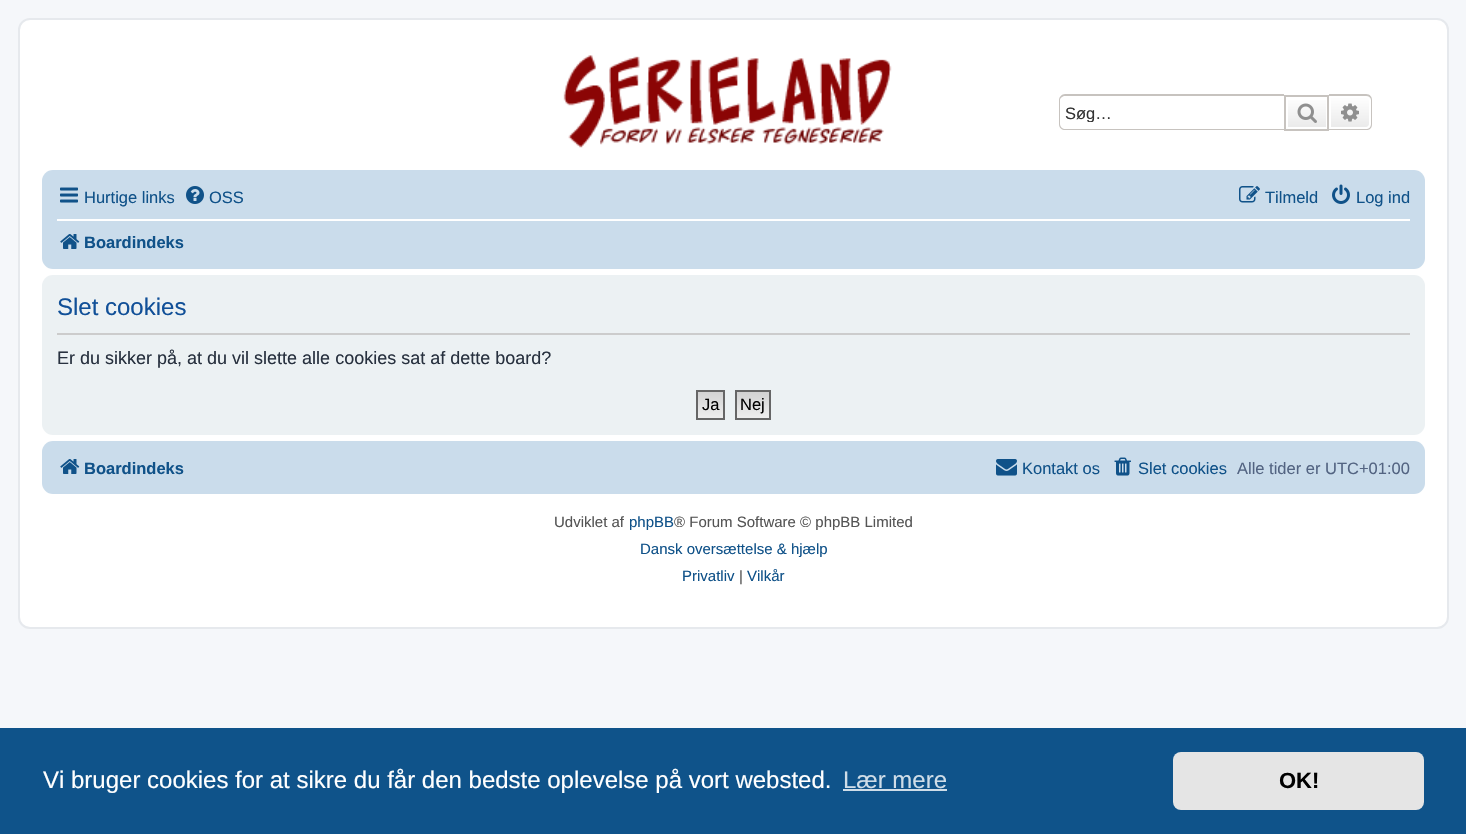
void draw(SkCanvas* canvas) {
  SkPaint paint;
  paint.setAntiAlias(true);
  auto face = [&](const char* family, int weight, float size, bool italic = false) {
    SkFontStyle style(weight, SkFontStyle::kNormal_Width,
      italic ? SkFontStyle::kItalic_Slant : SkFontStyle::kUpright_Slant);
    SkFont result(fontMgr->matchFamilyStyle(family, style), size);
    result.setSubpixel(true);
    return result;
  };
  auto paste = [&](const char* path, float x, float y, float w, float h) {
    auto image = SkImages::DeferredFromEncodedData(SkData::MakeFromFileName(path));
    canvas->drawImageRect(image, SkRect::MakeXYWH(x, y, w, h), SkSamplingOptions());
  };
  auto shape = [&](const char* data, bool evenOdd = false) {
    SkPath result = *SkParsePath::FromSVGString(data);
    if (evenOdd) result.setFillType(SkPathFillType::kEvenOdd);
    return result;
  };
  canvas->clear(0xfff5f7fa);
  paint.setColor(0xffffffff);
  canvas->drawRoundRect(SkRect::MakeXYWH(19, 19, 1429, 609), 11, 11, paint);
  paint.setStroke(true);
  paint.setStrokeWidth(2);
  paint.setColor(0xffe6e9ed);
  canvas->drawRoundRect(SkRect::MakeXYWH(19, 19, 1429, 609), 11, 11, paint);
  paste("img/1.png", 563, 55, 329, 93);
  paint.setStroke(false);
  paint.setColor(0xffc7c3bf);
  canvas->drawPath(shape("M1065 94H1284V130H1065C1062 130 1059 128 1059 124V100C1059 97 1062 94 1065 94ZM1065 96H1284V129H1065C1063 129 1060 127 1060 124V100C1060 98 1063 96 1065 96Z", true), paint);
  {
    const SkColor colors[] = {0xffffffff, 0xffe9e9e9};
    const float stops[] = {0, 1};
    const SkPoint ends[] = {{1307, 96}, {1307, 129}};
    paint.setShader(SkGradientShader::MakeLinear(ends, colors, stops, 2, SkTileMode::kClamp));
    paint.setAlpha(255);
  }
  canvas->drawRect(SkRect::MakeXYWH(1288, 100, 38, 27), paint);
  paint.setStroke(true);
  paint.setShader(nullptr);
  paint.setColor(0xffc7c3bf);
  canvas->drawRect(SkRect::MakeXYWH(1285, 96, 43, 34), paint);
  paste("img/2.png", 1297, 103, 20, 20);
  paint.setStroke(false);
  {
    const SkColor colors[] = {0xffffffff, 0xffe9e9e9};
    const float stops[] = {0, 1};
    const SkPoint ends[] = {{1350, 96}, {1350, 129}};
    paint.setShader(SkGradientShader::MakeLinear(ends, colors, stops, 2, SkTileMode::kClamp));
    paint.setAlpha(255);
  }
  canvas->drawPath(shape("M1330 97H1366C1368 97 1370 99 1370 101V124C1370 126 1368 128 1366 128H1330Z"), paint);
  paint.setStroke(true);
  paint.setShader(nullptr);
  paint.setColor(0xffffffff);
  canvas->drawPath(shape("M1330 97H1366C1368 97 1370 99 1370 101V124C1370 126 1368 128 1366 128H1330Z"), paint);
  paint.setStroke(false);
  paint.setColor(0xffc7c3bf);
  canvas->drawPath(shape("M1329 94H1366C1370 94 1372 97 1372 100V124C1372 128 1370 130 1366 130H1329ZM1329 96H1366C1369 96 1371 98 1371 100V124C1371 127 1369 129 1366 129H1329Z", true), paint);
  paste("img/3.png", 1341, 103, 18, 19);
  paint.setColor(0xffcadceb);
  canvas->drawRoundRect(SkRect::MakeXYWH(42, 170, 1383, 99), 11, 11, paint);
  paste("img/4.png", 60, 187, 18, 16);
  paste("img/5.png", 186, 186, 18, 18);
  paste("img/6.png", 1239, 186, 21, 17);
  paste("img/7.png", 1332, 184, 18, 20);
  paint.setColor(0xffffffff);
  canvas->drawRect(SkRect::MakeXYWH(57, 219, 1353, 2), paint);
  paste("img/8.png", 60, 234, 20, 15);
  paint.setColor(0xffecf1f3);
  canvas->drawRoundRect(SkRect::MakeXYWH(42, 275, 1383, 160), 11, 11, paint);
  paint.setColor(0xffcccccc);
  canvas->drawRect(SkRect::MakeXYWH(57, 333, 1353, 2), paint);
  {
    const SkColor colors[] = {0xffd2d2d2, 0xffefefef};
    const float stops[] = {0, 1};
    const SkPoint ends[] = {{710, 392}, {710, 419}};
    paint.setShader(SkGradientShader::MakeLinear(ends, colors, stops, 2, SkTileMode::kClamp));
    paint.setAlpha(255);
  }
  canvas->drawRect(SkRect::MakeXYWH(698, 392, 25, 26), paint);
  paint.setStroke(true);
  paint.setShader(nullptr);
  paint.setColor(0xff666666);
  canvas->drawRect(SkRect::MakeXYWH(697, 391, 27, 28), paint);
  paint.setStroke(false);
  {
    const SkColor colors[] = {0xffd2d2d2, 0xffefefef};
    const float stops[] = {0, 1};
    const SkPoint ends[] = {{753, 392}, {753, 419}};
    paint.setShader(SkGradientShader::MakeLinear(ends, colors, stops, 2, SkTileMode::kClamp));
    paint.setAlpha(255);
  }
  canvas->drawRect(SkRect::MakeXYWH(737, 392, 32, 26), paint);
  paint.setStroke(true);
  paint.setShader(nullptr);
  paint.setColor(0xff666666);
  canvas->drawRect(SkRect::MakeXYWH(736, 391, 34, 28), paint);
  paint.setStroke(false);
  paint.setColor(0xffcadceb);
  canvas->drawRoundRect(SkRect::MakeXYWH(42, 441, 1383, 53), 11, 11, paint);
  paste("img/8.png", 60, 459, 20, 15);
  paste("img/9.png", 996, 459, 21, 17);
  paste("img/10.png", 1114, 457, 17, 19);
  paint.setColor(0xff0f538a);
  canvas->drawRect(SkRect::MakeXYWH(0, 728, 1466, 106), paint);
  paint.setColor(0xffcfdde8);
  canvas->drawRect(SkRect::MakeXYWH(843, 789, 104, 2), paint);
  paint.setColor(0xffe5e5e5);
  canvas->drawRoundRect(SkRect::MakeXYWH(1173, 752, 251, 58), 8, 8, paint);
  canvas->save();
  canvas->clipRect(SkRect::MakeXYWH(1065, 104, 209, 18));
  auto f0 = face("Liberation Sans", 400, 16.5f);
  paint.setColor(0xff333333);
  canvas->drawString("Søg…", 1065, 119, f0, paint);
  canvas->restore();
  paint.setColor(0xff105289);
  {
    const struct { const char* s; float x, y; } items[] = {
      {"Hurtige links", 84, 203},
      {"OSS", 209, 203},
      {"Tilmeld", 1265, 203},
      {"Log ind", 1356, 203},
    };
    for (auto [s, x, y] : items) {
      canvas->drawString(s, x, y, f0, paint);
    }
  }
  auto f1 = face("Liberation Sans", 700, 16.5f);
  canvas->drawString("Boardindeks", 84, 248, f1, paint);
  auto f2 = face("Liberation Sans", 400, 24);
  paint.setColor(0xff115098);
  canvas->drawString("Slet cookies", 57, 315, f2, paint);
  auto f3 = face("Liberation Sans", 400, 18);
  paint.setColor(0xff28313f);
  canvas->drawString("Er du sikker på, at du vil slette alle cookies sat af dette board?", 57, 364, f3, paint);
  paint.setColor(0xff000000);
  canvas->drawString("Ja", 702, 410, f0, paint);
  canvas->drawString("Nej", 740, 410, f0, paint);
  paint.setColor(0xff105289);
  canvas->drawString("Boardindeks", 84, 474, f1, paint);
  canvas->drawString("Kontakt os", 1022, 474, f0, paint);
  canvas->drawString("Slet cookies", 1138, 474, f0, paint);
  paint.setColor(0xff536482);
  canvas->drawString("Alle tider er UTC+01:00", 1237, 474, f0, paint);
  auto f4 = face("Liberation Sans", 400, 15);
  paint.setColor(0xff555555);
  canvas->drawString("Udviklet af", 554, 527, f4, paint);
  paint.setColor(0xff105289);
  canvas->drawString("phpBB", 629, 527, f4, paint);
  paint.setColor(0xff555555);
  canvas->drawString("® Forum Software © phpBB Limited", 674, 527, f4, paint);
  paint.setColor(0xff105289);
  canvas->drawString("Dansk oversættelse & hjælp", 640, 554, f4, paint);
  canvas->drawString("Privatliv", 682, 581, f4, paint);
  paint.setColor(0xff555555);
  canvas->drawString("|", 739, 581, f4, paint);
  paint.setColor(0xff105289);
  canvas->drawString("Vilkår", 747, 581, f4, paint);
  paint.setColor(0xffffffff);
  canvas->drawString("Vi bruger cookies for at sikre du får den bedste oplevelse på vort websted.", 43, 788, f2, paint);
  paint.setColor(0xffcfdde8);
  canvas->drawString("Lær mere", 843, 788, f2, paint);
  auto f5 = face("Liberation Sans", 700, 22);
  paint.setColor(0xff000000);
  canvas->drawString("OK!", 1279, 788, f5, paint);
}
